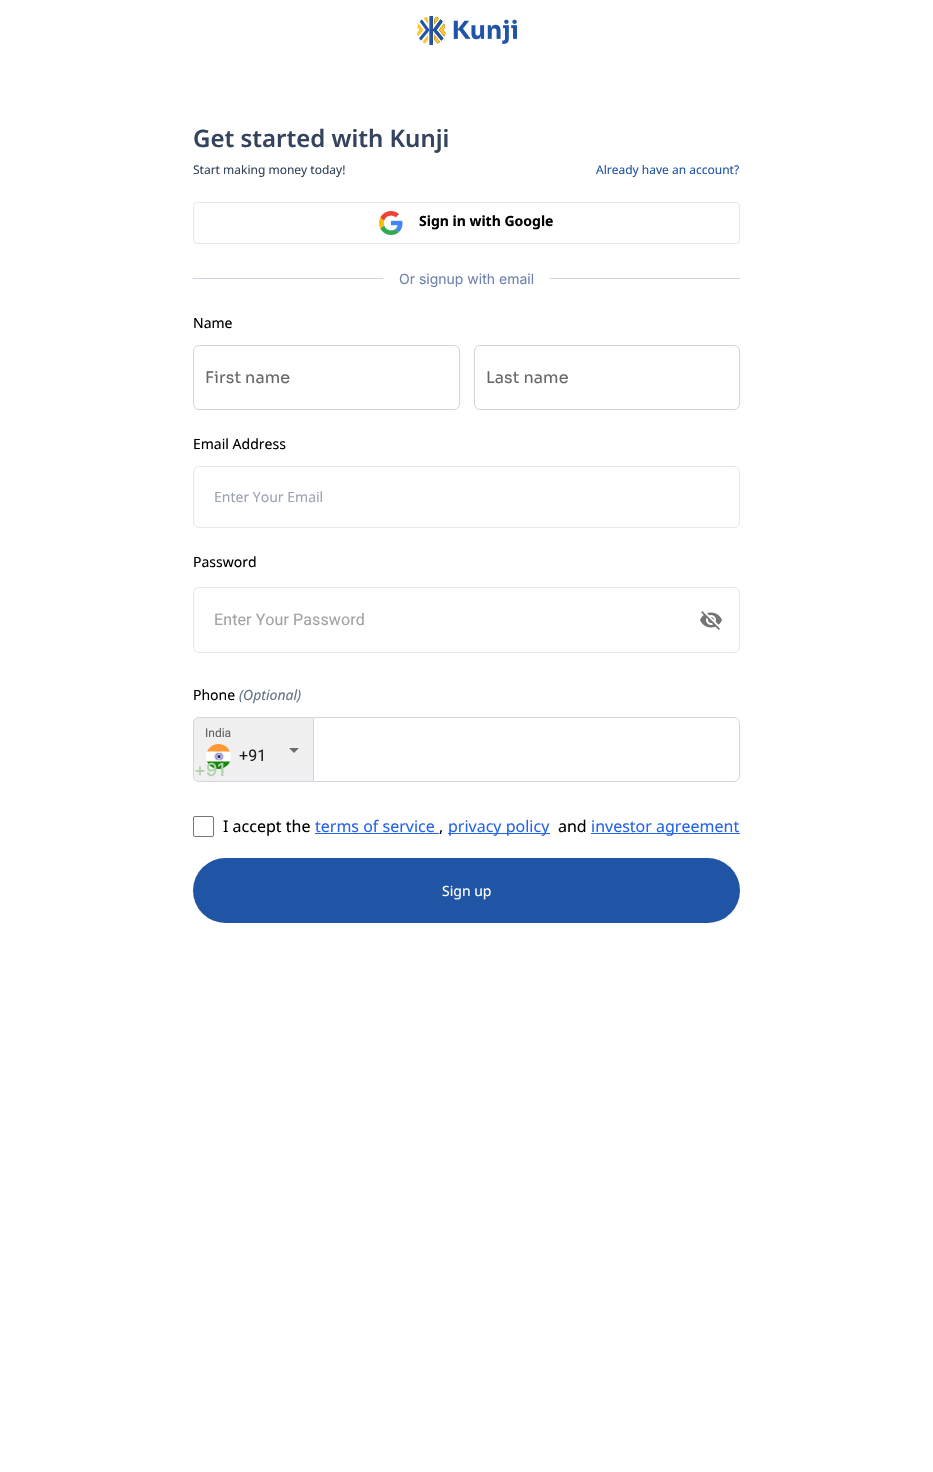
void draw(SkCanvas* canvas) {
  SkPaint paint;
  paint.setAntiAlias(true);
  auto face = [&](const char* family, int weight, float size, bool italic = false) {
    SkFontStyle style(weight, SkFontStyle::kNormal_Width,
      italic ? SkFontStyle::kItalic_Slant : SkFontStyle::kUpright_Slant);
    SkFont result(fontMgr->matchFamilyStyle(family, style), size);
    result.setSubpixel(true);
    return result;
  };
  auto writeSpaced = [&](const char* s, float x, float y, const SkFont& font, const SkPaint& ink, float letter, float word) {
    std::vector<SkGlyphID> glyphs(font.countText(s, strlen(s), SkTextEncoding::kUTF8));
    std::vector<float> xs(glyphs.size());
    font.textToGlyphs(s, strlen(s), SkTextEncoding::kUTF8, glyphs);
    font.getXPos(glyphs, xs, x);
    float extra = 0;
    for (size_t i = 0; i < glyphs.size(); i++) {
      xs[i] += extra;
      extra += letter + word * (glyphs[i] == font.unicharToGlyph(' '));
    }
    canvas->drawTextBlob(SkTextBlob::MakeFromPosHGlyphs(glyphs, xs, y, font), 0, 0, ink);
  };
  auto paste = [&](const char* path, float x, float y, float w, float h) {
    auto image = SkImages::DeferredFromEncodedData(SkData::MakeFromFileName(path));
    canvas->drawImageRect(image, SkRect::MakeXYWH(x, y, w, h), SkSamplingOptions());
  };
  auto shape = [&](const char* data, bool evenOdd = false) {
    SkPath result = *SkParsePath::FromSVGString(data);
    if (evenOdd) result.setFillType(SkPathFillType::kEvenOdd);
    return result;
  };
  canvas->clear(0xffffffff);
  paste("img/1.png", 417, 16, 100, 29);
  paint.setStroke(true);
  paint.setStrokeWidth(1);
  paint.setColor(0xffe5e7eb);
  canvas->drawRoundRect(SkRect::MakeXYWH(193.5f, 202.5f, 546, 41), 3.5f, 3.5f, paint);
  paste("img/2.png", 379, 211, 24, 24);
  paint.setStroke(false);
  paint.setColor(0xffd2d5df);
  canvas->drawRect(SkRect::MakeXYWH(193, 278, 190, 1), paint);
  canvas->drawRect(SkRect::MakeXYWH(550, 278, 190, 1), paint);
  paint.setStroke(true);
  canvas->drawRoundRect(SkRect::MakeXYWH(193.5f, 345.5f, 266, 64), 5.5f, 5.5f, paint);
  canvas->drawRoundRect(SkRect::MakeXYWH(474.5f, 345.5f, 265, 64), 5.5f, 5.5f, paint);
  paint.setColor(0xffe5e7eb);
  canvas->drawRoundRect(SkRect::MakeXYWH(193.5f, 466.5f, 546, 61), 5.5f, 5.5f, paint);
  canvas->drawRoundRect(SkRect::MakeXYWH(193.5f, 587.5f, 546, 65), 5.5f, 5.5f, paint);
  paste("img/3.png", 700, 611, 22, 19);
  paint.setStroke(false);
  paint.setColor(0xfff0f0f0);
  canvas->drawPath(shape("M199 717H313V782H199C195.5 782 193 779.5 193 776V723C193 719.5 195.5 717 199 717Z"), paint);
  paint.setColor(0xffd2d5df);
  canvas->drawPath(shape("M199 717H313V782H199C196 782 193 779 193 776V723C193 720 196 717 199 717ZM199 718H313V781H199C196 781 194 779 194 776V723C194 720 196 718 199 718Z", true), paint);
  paste("img/4.png", 206, 744, 25, 25);
  paint.setColor(0xff6e6e6e);
  canvas->drawPath(shape("M289 748L294 753L299 748Z"), paint);
  paint.setStroke(true);
  paint.setColor(0xffd2d5df);
  canvas->drawPath(shape("M313.5 717.5H734C737 717.5 739.5 720 739.5 723V776C739.5 779 737 781.5 734 781.5H313.5Z"), paint);
  paint.setColor(0xff767676);
  canvas->drawRoundRect(SkRect::MakeXYWH(193.5f, 816.5f, 20, 20), 1.5f, 1.5f, paint);
  paint.setStroke(false);
  {
    const struct { float x, y, w, h; SkColor color; } items[] = {
      {315, 833, 124, 1, 0xff2563eb},
      {448, 833, 102, 1, 0xff2563eb},
      {591, 833, 149, 1, 0xff2563eb},
    };
    for (auto [x, y, w, h, color] : items) {
      paint.setColor(color);
      canvas->drawRect(SkRect::MakeXYWH(x, y, w, h), paint);
    }
  }
  paint.setColor(0xff2054a5);
  canvas->drawRoundRect(SkRect::MakeXYWH(193, 858, 547, 65), 32.5f, 32.5f, paint);
  auto f0 = face("Noto Sans", 600, 24);
  paint.setColor(0xff34435e);
  canvas->drawString("Get started with Kunji", 193, 147, f0, paint);
  auto f1 = face("Noto Sans", 400, 12);
  canvas->drawString("Start making money today!", 193, 174, f1, paint);
  paint.setColor(0xff2054a5);
  canvas->drawString("Already have an account?", 596, 174, f1, paint);
  auto f2 = face("Noto Sans", 700, 14);
  paint.setColor(0xff000000);
  canvas->drawString("Sign in with Google", 419, 226, f2, paint);
  auto f3 = face("Inter", 400, 14);
  paint.setColor(0xff6e82aa);
  canvas->drawString("Or signup with email", 399, 284, f3, paint);
  auto f4 = face("Noto Sans", 400, 14);
  paint.setColor(0xff000000);
  canvas->drawString("Name", 193, 328, f4, paint);
  auto f5 = face("Sora", 400, 16);
  paint.setColor(0xff666666);
  writeSpaced("First name", 205, 383, f5, paint, 0.1f, 0);
  writeSpaced("Last name", 486, 383, f5, paint, 0.1f, 0);
  paint.setColor(0xff000000);
  canvas->drawString("Email Address", 193, 449, f4, paint);
  paint.setColor(0xff9ca3af);
  canvas->drawString("Enter Your Email", 214, 502, f4, paint);
  paint.setColor(0xff000000);
  canvas->drawString("Password", 193, 567, f4, paint);
  auto f6 = face("Roboto", 400, 16);
  paint.setColor(0xffa2a2a2);
  writeSpaced("Enter Your Password", 214, 625, f6, paint, 0.1f, 0);
  paint.setColor(0xff000000);
  canvas->drawString("Phone", 193, 700, f4, paint);
  auto f7 = face("Noto Sans", 400, 14, true);
  paint.setColor(0xff64748b);
  canvas->drawString("(Optional)", 239, 700, f7, paint);
  auto f8 = face("Roboto", 400, 12);
  paint.setColor(0xff606060);
  canvas->drawString("India", 205, 737, f8, paint);
  paint.setColor(0xff1f1f1f);
  writeSpaced("+91", 239, 761, f6, paint, 0.1f, 0);
  auto f9 = face("Inter", 500, 18);
  paint.setColor(0xffafd2ac);
  canvas->drawString("+91", 194, 776, f9, paint);
  auto f10 = face("Noto Sans", 400, 16);
  paint.setColor(0xff000000);
  canvas->drawString("I accept the", 223, 832, f10, paint);
  paint.setColor(0xff2563eb);
  canvas->drawString("terms of service", 315, 832, f10, paint);
  paint.setColor(0xff000000);
  canvas->drawString(",", 439, 832, f10, paint);
  paint.setColor(0xff2563eb);
  canvas->drawString("privacy policy", 448, 832, f10, paint);
  paint.setColor(0xff000000);
  canvas->drawString("and", 558, 832, f10, paint);
  paint.setColor(0xff2563eb);
  canvas->drawString("investor agreement", 591, 832, f10, paint);
  paint.setColor(0xffffffff);
  canvas->drawString("Sign up", 442, 896, f4, paint);
}
